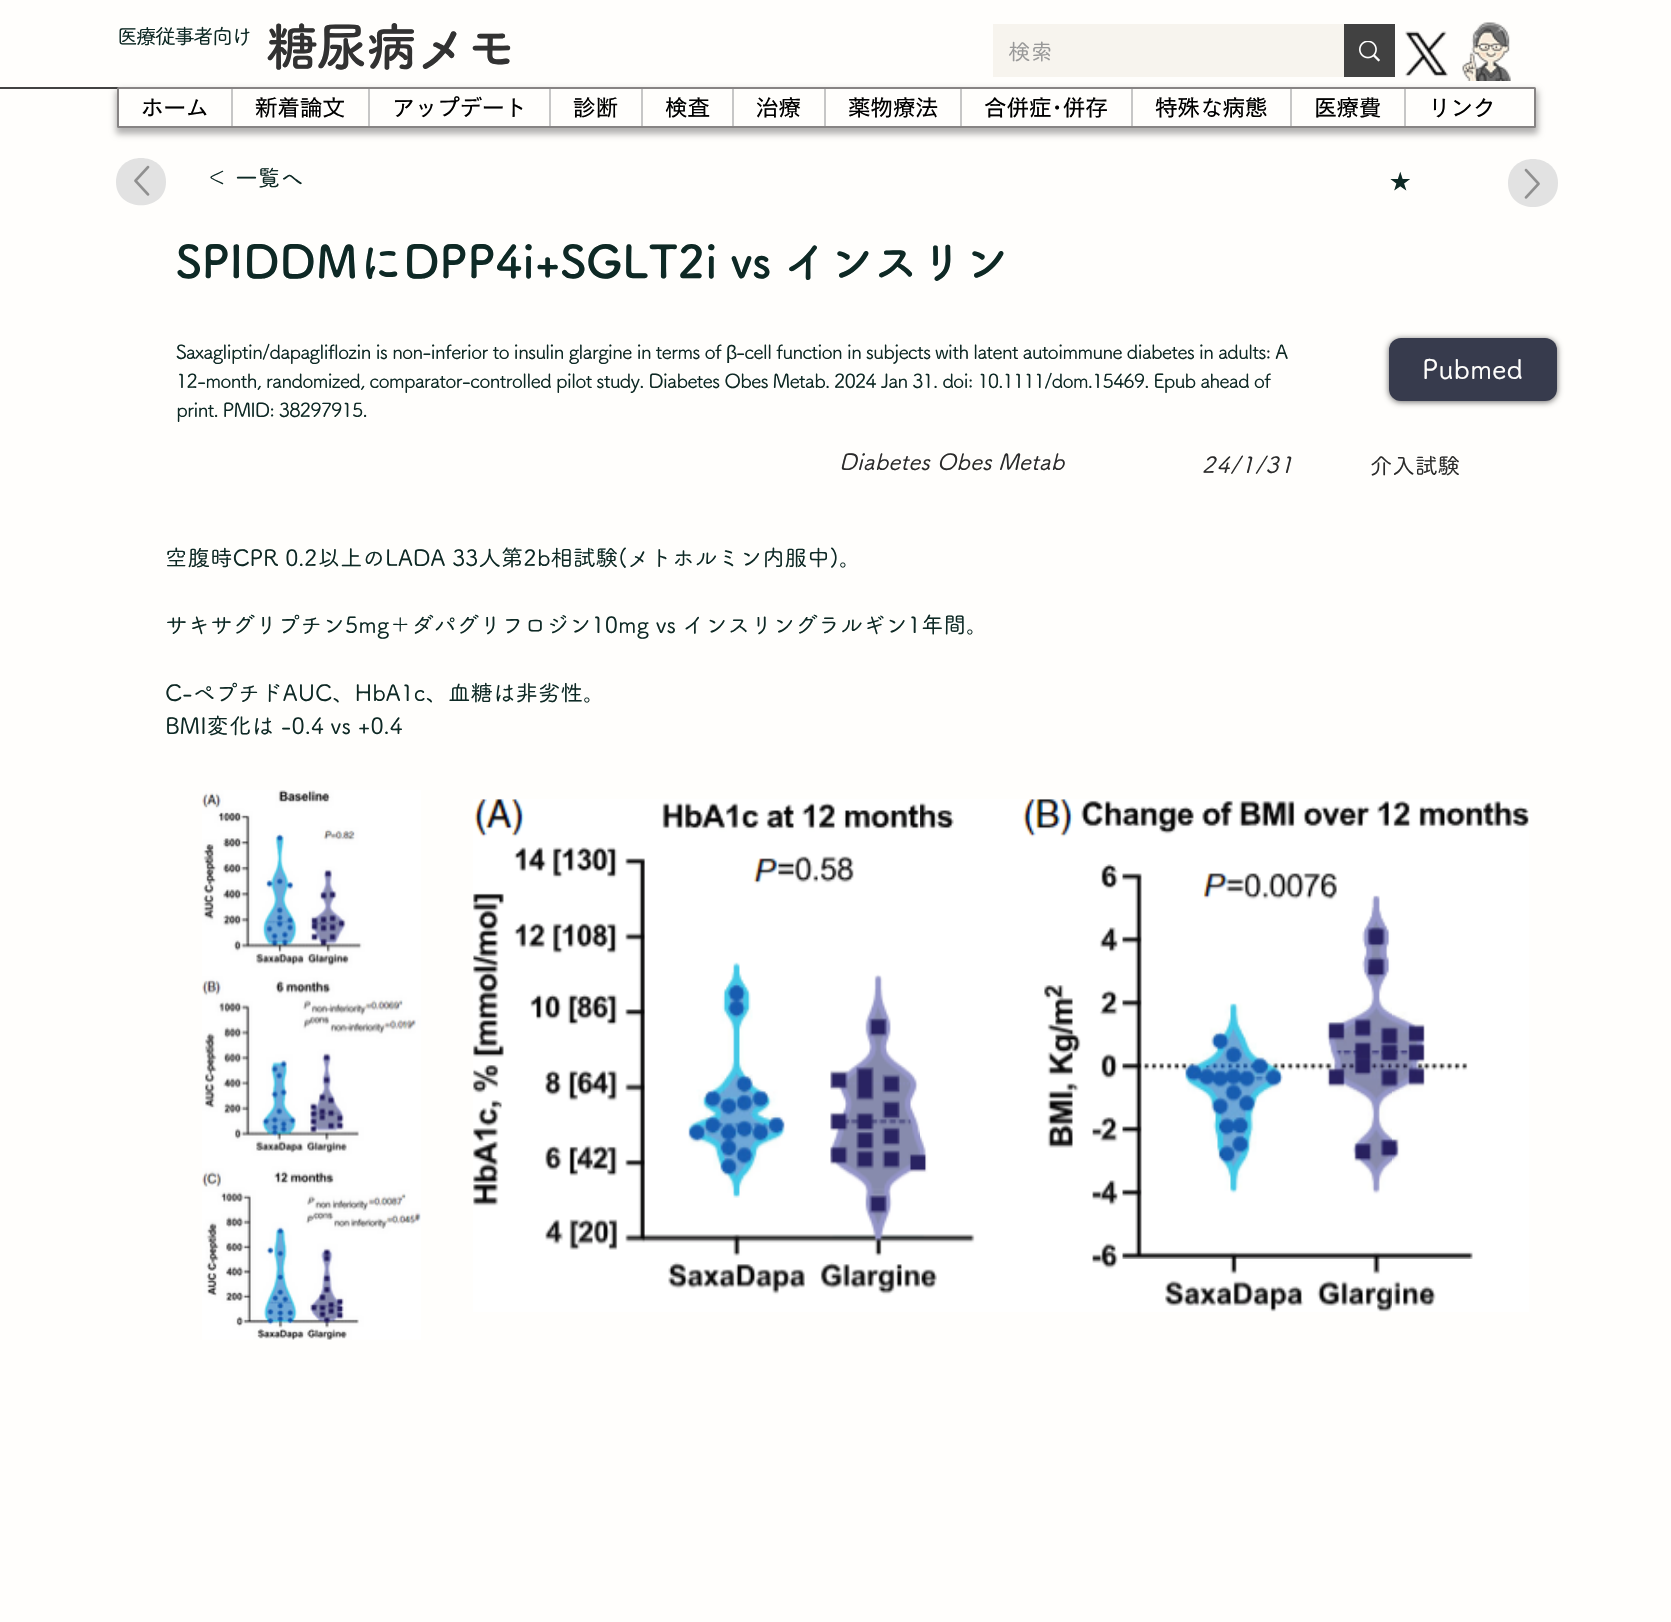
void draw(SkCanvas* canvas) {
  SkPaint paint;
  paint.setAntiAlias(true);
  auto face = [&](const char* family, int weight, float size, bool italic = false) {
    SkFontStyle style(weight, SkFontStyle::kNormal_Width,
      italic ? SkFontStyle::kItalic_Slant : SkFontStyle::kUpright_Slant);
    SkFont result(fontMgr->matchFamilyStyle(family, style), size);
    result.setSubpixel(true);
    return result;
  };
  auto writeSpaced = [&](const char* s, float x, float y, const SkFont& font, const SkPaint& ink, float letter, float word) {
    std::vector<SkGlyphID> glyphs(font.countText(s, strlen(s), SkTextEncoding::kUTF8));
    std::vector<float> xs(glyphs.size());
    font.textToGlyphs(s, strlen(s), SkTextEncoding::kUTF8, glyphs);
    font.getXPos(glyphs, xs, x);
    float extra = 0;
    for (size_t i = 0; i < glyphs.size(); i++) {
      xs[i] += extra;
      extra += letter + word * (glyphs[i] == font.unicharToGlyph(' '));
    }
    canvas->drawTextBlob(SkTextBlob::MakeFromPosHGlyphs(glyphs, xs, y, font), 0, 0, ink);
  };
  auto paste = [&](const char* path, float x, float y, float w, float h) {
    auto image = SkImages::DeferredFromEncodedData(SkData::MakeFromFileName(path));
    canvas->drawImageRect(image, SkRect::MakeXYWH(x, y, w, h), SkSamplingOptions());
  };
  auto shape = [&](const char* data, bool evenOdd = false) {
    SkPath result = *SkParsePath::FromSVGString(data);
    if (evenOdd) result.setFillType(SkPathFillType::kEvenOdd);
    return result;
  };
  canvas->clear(0xfffffefc);
  paint.setColor(0xfff7f4ee);
  canvas->drawRect(SkRect::MakeXYWH(993, 24, 351, 53), paint);
  paint.setColor(0xff414141);
  canvas->drawRect(SkRect::MakeXYWH(1344, 24, 51, 53), paint);
  paste("img/1.png", 1359, 41, 21, 21);
  paste("img/2.png", 1405, 31, 43, 46);
  paste("img/3.png", 1462, 22, 49, 59);
  paint.setColor(0xff424242);
  canvas->drawRect(SkRect::MakeXYWH(0, 87, 119, 2), paint);
  paint.setColor(0x4d000000);
  paint.setMaskFilter(SkMaskFilter::MakeBlur(kNormal_SkBlurStyle, 3));
  canvas->drawRoundRect(SkRect::MakeXYWH(116, 90, 1422, 44), 3, 3, paint);
  paint.setMaskFilter(nullptr);
  paint.setColor(0xfffffefc);
  canvas->drawRoundRect(SkRect::MakeXYWH(118, 88, 1417, 39), 0.5f, 0.5f, paint);
  paint.setStroke(true);
  paint.setStrokeWidth(2);
  paint.setColor(0xff878484);
  canvas->drawRoundRect(SkRect::MakeXYWH(118, 88, 1417, 39), 0.5f, 0.5f, paint);
  paint.setStroke(false);
  {
    const struct { float x, y, w, h; SkColor color; } items[] = {
      {231, 89, 2, 37, 0xffc7c7c7},
      {368, 89, 2, 37, 0xffc7c7c7},
      {549, 89, 2, 37, 0xffc7c7c7},
      {641, 89, 2, 37, 0xffc7c7c7},
      {732, 89, 2, 37, 0xffc7c7c7},
      {824, 89, 2, 37, 0xffc7c7c7},
      {960, 89, 2, 37, 0xffc7c7c7},
      {1131, 89, 2, 37, 0xffc7c7c7},
      {1290, 89, 2, 37, 0xffc7c7c7},
      {1404, 89, 2, 37, 0xffc7c7c7},
    };
    for (auto [x, y, w, h, color] : items) {
      paint.setColor(color);
      canvas->drawRect(SkRect::MakeXYWH(x, y, w, h), paint);
    }
  }
  paint.setColor(0xffe2e2e2);
  canvas->drawPath(shape("M116 182C116 150 166 150 166 182C166 213 116 213 116 182Z"), paint);
  paste("img/4.png", 134, 165, 16, 31);
  canvas->drawPath(shape("M1558 183C1558 215 1508 215 1508 183C1508 151 1558 151 1558 183Z"), paint);
  paste("img/5.png", 1524, 168, 16, 31);
  paint.setColor(0x99000000);
  paint.setMaskFilter(SkMaskFilter::MakeBlur(kNormal_SkBlurStyle, 3));
  canvas->drawRoundRect(SkRect::MakeXYWH(1389, 339, 168, 63), 12, 12, paint);
  paint.setMaskFilter(nullptr);
  paint.setColor(0xff373b4d);
  canvas->drawRoundRect(SkRect::MakeXYWH(1389, 338, 168, 63), 12, 12, paint);
  paste("img/6.png", 202, 790, 219, 550);
  paste("img/7.png", 473, 799, 1056, 513);
  auto f0 = face("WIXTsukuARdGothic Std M", 500, 21);
  paint.setColor(0xff0e2925);
  writeSpaced("医療従事者向け", 117, 44, f0, paint, -2, 0);
  auto f1 = face("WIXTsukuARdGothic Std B", 700, 52.5f);
  paint.setColor(0xff323232);
  writeSpaced("糖尿病メモ", 266, 66, f1, paint, -2.5f, 0);
  auto f2 = face("WIXTsukuARdGothic Std M", 500, 22.5f);
  paint.setColor(0xff999999);
  canvas->drawString("検索", 1008, 60, f2, paint);
  auto f3 = face("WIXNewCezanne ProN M", 500, 22.5f);
  paint.setColor(0xff000000);
  {
    const struct { const char* s; float x, y; } items[] = {
      {"ホーム", 141, 116},
      {"新着論文", 255, 116},
      {"アップデート", 392, 116},
      {"診断", 573, 116},
      {"検査", 665, 116},
      {"治療", 756, 116},
      {"薬物療法", 848, 116},
      {"合併症･併存", 984, 116},
      {"特殊な病態", 1155, 116},
      {"医療費", 1314, 116},
      {"リンク", 1428, 116},
    };
    for (auto [s, x, y] : items) {
      canvas->drawString(s, x, y, f3, paint);
    }
  }
  paint.setColor(0xff0e2925);
  canvas->drawString("＜ 一覧へ", 206, 186, f2, paint);
  auto f4 = face("WenQuanYi Zen Hei", 500, 22.5f);
  writeSpaced("★", 1389, 189, f4, paint, -1, 0);
  auto f5 = face("WIXTsukuARdGothic Std B", 700, 45);
  canvas->drawString("SPIDDMにDPP4i+SGLT2i vs インスリン", 176, 278, f5, paint);
  auto f6 = face("WIXTsukuARdGothic Std M", 500, 19.5f);
  writeSpaced("Saxagliptin/dapagliflozin is non-inferior to insulin glargine in terms of", 176, 359, f6, paint, -0.98f, 0);
  auto f7 = face("Liberation Sans", 400, 19.5f);
  writeSpaced("β", 726, 359, f7, paint, -0.98f, 0);
  {
    const struct { const char* s; float x, y; } items[] = {
      {"-cell function in subjects with latent autoimmune diabetes in adults: A", 736, 359},
      {"12-month, randomized, comparator-controlled pilot study. Diabetes Obes Metab. 2024 Jan 31. doi: 10.1111/dom.15469. Epub ahead of", 176, 388},
      {"print. PMID: 38297915.", 176, 417},
    };
    for (auto [s, x, y] : items) {
      writeSpaced(s, x, y, f6, paint, -0.98f, 0);
    }
  }
  auto f8 = face("WIXTsukuARdGothic Std M", 500, 27);
  paint.setColor(0xfffffefc);
  canvas->drawString("Pubmed", 1422, 379, f8, paint);
  auto f9 = face("WIXTsukuARdGothic Std M", 500, 22.5f, true);
  paint.setColor(0xff2b2b2b);
  canvas->drawString("Diabetes Obes Metab", 839, 470, f9, paint);
  writeSpaced("24/1/31", 1202, 473, f9, paint, 1, 0);
  canvas->drawString("介入試験", 1370, 474, f2, paint);
  paint.setColor(0xff0e2925);
  {
    const struct { const char* s; float x, y; } items[] = {
      {"空腹時CPR 0.2以上のLADA 33人第2b相試験(メトホルミン内服中)。", 165, 566},
      {"サキサグリプチン5mg＋ダパグリフロジン10mg vs インスリングラルギン1年間。", 165, 633},
      {"C-ペプチドAUC、HbA1c、血糖は非劣性。", 165, 701},
      {"BMI変化は -0.4 vs +0.4", 165, 734},
    };
    for (auto [s, x, y] : items) {
      canvas->drawString(s, x, y, f2, paint);
    }
  }
}
